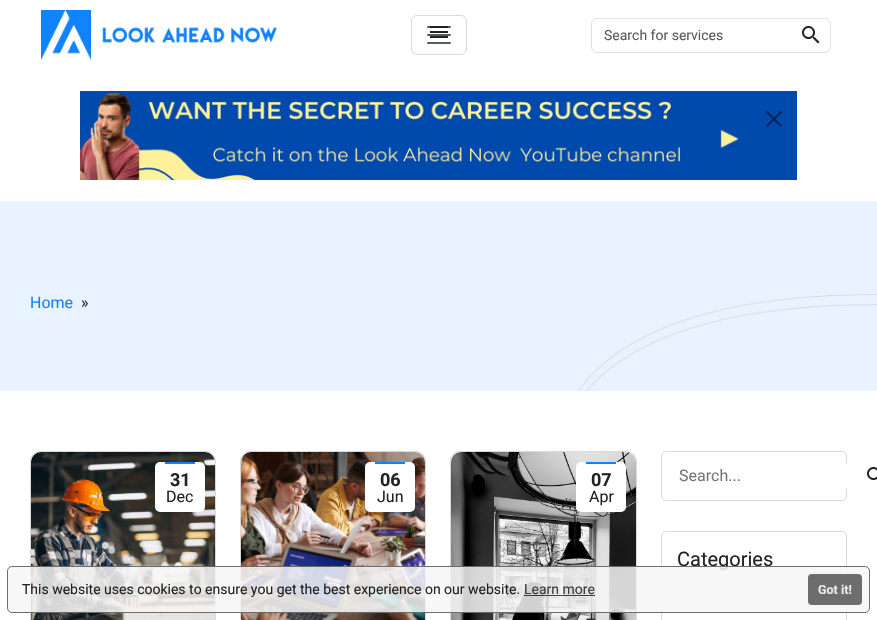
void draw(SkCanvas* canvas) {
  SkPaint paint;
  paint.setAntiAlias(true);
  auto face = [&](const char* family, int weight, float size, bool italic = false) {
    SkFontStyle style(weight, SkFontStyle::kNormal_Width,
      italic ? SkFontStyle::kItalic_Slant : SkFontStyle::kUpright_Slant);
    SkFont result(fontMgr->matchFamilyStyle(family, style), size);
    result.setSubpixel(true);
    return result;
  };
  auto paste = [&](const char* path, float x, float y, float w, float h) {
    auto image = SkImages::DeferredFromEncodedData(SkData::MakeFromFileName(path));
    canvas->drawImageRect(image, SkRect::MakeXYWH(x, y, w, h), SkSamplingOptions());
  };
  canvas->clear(0xffffffff);
  paste("img/1.png", 41, 10, 236, 50);
  paint.setStroke(true);
  paint.setStrokeWidth(1);
  paint.setColor(0xffd9d9d9);
  canvas->drawRoundRect(SkRect::MakeXYWH(411.5f, 15.5f, 55, 39), 5.5f, 5.5f, paint);
  paste("img/2.png", 427, 26, 24, 18);
  paste("img/3.png", 430, 26, 18, 12);
  paint.setColor(0xffdee2e6);
  canvas->drawRoundRect(SkRect::MakeXYWH(591.5f, 18.5f, 239, 34), 5.5f, 5.5f, paint);
  paste("img/4.png", 802, 26, 18, 18);
  paint.setStroke(false);
  paint.setColor(0xffe8f3ff);
  canvas->drawRect(SkRect::MakeXYWH(0, 201, 877, 190), paint);
  paste("img/5.png", 578, 294, 299, 97);
  paint.setStroke(true);
  paint.setColor(0xffd9d9d9);
  canvas->drawRoundRect(SkRect::MakeXYWH(30.5f, 451.5f, 185, 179), 9.5f, 9.5f, paint);
  paste("img/6.png", 31, 452, 184, 168);
  paint.setStroke(false);
  paint.setColor(0xffffffff);
  canvas->drawRoundRect(SkRect::MakeXYWH(155, 462, 50, 50), 5, 5, paint);
  paint.setColor(0xff1283ff);
  canvas->drawRect(SkRect::MakeXYWH(165, 462, 30, 2), paint);
  paint.setStroke(true);
  paint.setColor(0xffd9d9d9);
  canvas->drawRoundRect(SkRect::MakeXYWH(240.5f, 451.5f, 185, 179), 9.5f, 9.5f, paint);
  paste("img/7.png", 241, 452, 184, 168);
  paint.setStroke(false);
  paint.setColor(0xffffffff);
  canvas->drawRoundRect(SkRect::MakeXYWH(365, 462, 50, 50), 5, 5, paint);
  paint.setColor(0xff1283ff);
  canvas->drawRect(SkRect::MakeXYWH(375, 462, 30, 2), paint);
  paint.setStroke(true);
  paint.setColor(0xffd9d9d9);
  canvas->drawRoundRect(SkRect::MakeXYWH(450.5f, 451.5f, 186, 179), 9.5f, 9.5f, paint);
  paste("img/8.png", 451, 452, 185, 168);
  paint.setStroke(false);
  paint.setColor(0xffffffff);
  canvas->drawRoundRect(SkRect::MakeXYWH(576, 462, 50, 50), 5, 5, paint);
  paint.setColor(0xff1283ff);
  canvas->drawRect(SkRect::MakeXYWH(586, 462, 30, 2), paint);
  paint.setStroke(true);
  paint.setColor(0xffd9d9d9);
  canvas->drawRoundRect(SkRect::MakeXYWH(661.5f, 451.5f, 185, 49), 4.5f, 4.5f, paint);
  paint.setStroke(false);
  paint.setColor(0xffffffff);
  canvas->drawRect(SkRect::MakeXYWH(846, 463, 1, 26), paint);
  paste("img/9.png", 867, 467, 10, 13);
  paint.setStroke(true);
  paint.setColor(0xffd9d9d9);
  canvas->drawRoundRect(SkRect::MakeXYWH(661.5f, 531.5f, 185, 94), 4.5f, 4.5f, paint);
  paste("img/10.png", 80, 91, 717, 89);
  paste("img/11.png", 766, 111, 16, 16);
  auto f0 = face("Roboto", 400, 14);
  paint.setStroke(false);
  paint.setColor(0xff595c5f);
  canvas->drawString("Search for services", 604, 40, f0, paint);
  auto f1 = face("Roboto", 400, 16);
  paint.setColor(0xff1283ff);
  canvas->drawString("Home", 30, 308, f1, paint);
  paint.setColor(0xff212529);
  canvas->drawString("»", 81, 308, f1, paint);
  auto f2 = face("Roboto", 700, 18);
  paint.setColor(0xff222222);
  canvas->drawString("31", 170, 486, f2, paint);
  canvas->drawString("Dec", 166, 502, f1, paint);
  canvas->drawString("06", 380, 486, f2, paint);
  canvas->drawString("Jun", 377, 502, f1, paint);
  canvas->drawString("07", 591, 486, f2, paint);
  canvas->drawString("Apr", 589, 502, f1, paint);
  paint.setColor(0xff757575);
  canvas->drawString("Search...", 679, 481, f1, paint);
  auto f3 = face("Roboto", 400, 20);
  paint.setColor(0xff222222);
  canvas->drawString("Categories", 677, 566, f3, paint);
  paint.setColor(0xd9f6f6f6);
  canvas->drawRoundRect(SkRect::MakeXYWH(7, 566, 863, 47), 5, 5, paint);
  paint.setStroke(true);
  paint.setColor(0xd9555555);
  canvas->drawRoundRect(SkRect::MakeXYWH(7.5f, 566.5f, 862, 46), 4.5f, 4.5f, paint);
  paint.setStroke(false);
  paint.setColor(0xff222222);
  canvas->drawString("This website uses cookies to ensure you get the best experience on our website.", 22, 594, f0, paint);
  paint.setColor(0xff3d3d3d);
  canvas->drawString("Learn more", 524, 594, f0, paint);
  paint.setColor(0xb8000000);
  canvas->drawRect(SkRect::MakeXYWH(524, 595, 71, 1), paint);
  paint.setColor(0xd9555555);
  canvas->drawRoundRect(SkRect::MakeXYWH(808, 574, 54, 31), 4, 4, paint);
  auto f4 = face("Roboto", 700, 12.5f);
  paint.setColor(0xffe9e9e9);
  canvas->drawString("Got it!", 818, 594, f4, paint);
}
